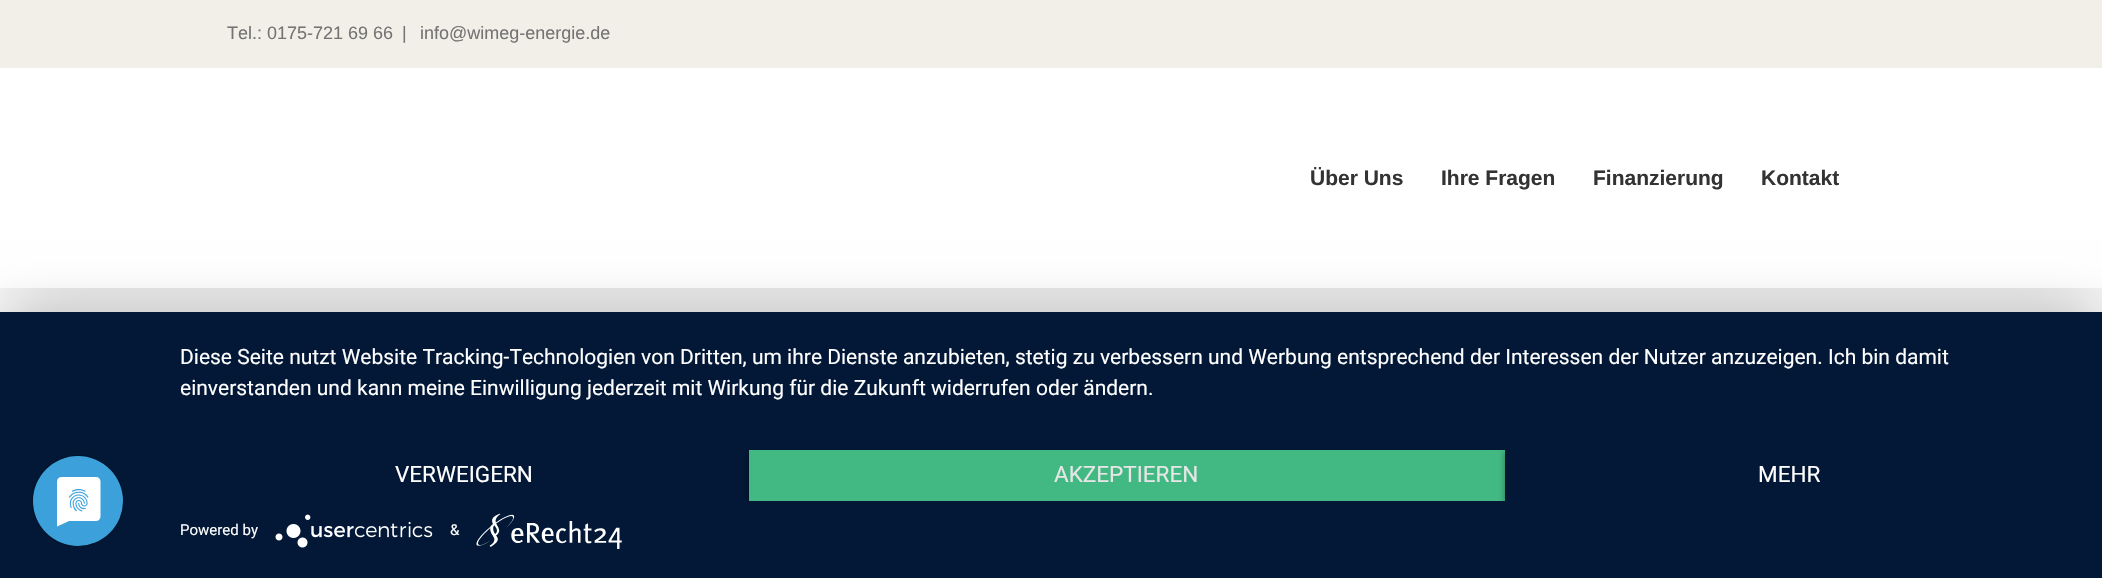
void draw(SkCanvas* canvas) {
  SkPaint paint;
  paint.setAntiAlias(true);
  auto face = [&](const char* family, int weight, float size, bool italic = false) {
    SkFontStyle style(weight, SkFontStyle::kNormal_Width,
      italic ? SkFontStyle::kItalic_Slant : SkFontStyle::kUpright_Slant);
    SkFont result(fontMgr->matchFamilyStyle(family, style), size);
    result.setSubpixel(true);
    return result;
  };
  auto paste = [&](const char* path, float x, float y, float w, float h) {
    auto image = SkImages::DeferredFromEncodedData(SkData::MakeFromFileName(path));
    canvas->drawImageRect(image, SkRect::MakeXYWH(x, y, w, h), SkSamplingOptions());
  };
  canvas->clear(0xffffffff);
  paint.setColor(0x24000000);
  paint.setMaskFilter(SkMaskFilter::MakeBlur(kNormal_SkBlurStyle, 37.5f));
  canvas->drawRect(SkRect::MakeXYWH(3, 18, 2097, 282), paint);
  paint.setMaskFilter(nullptr);
  paint.setColor(0xfff2efe8);
  canvas->drawRect(SkRect::MakeXYWH(0, 0, 2102, 68), paint);
  paint.setColor(0xffffffff);
  canvas->drawRect(SkRect::MakeXYWH(0, 68, 2102, 220), paint);
  paint.setColor(0x4d000000);
  paint.setMaskFilter(SkMaskFilter::MakeBlur(kNormal_SkBlurStyle, 27));
  canvas->drawRect(SkRect::MakeXYWH(0, 321, 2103, 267), paint);
  paint.setMaskFilter(nullptr);
  paint.setColor(0xff021836);
  canvas->drawRect(SkRect::MakeXYWH(0, 312, 2102, 266), paint);
  paste("img/1.png", 32, 455, 92, 92);
  canvas->save();
  canvas->clipRect(SkRect::MakeXYWH(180, 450, 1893, 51));
  paint.setColor(0x66000000);
  paint.setMaskFilter(SkMaskFilter::MakeBlur(kNormal_SkBlurStyle, 3));
  canvas->drawRect(SkRect::MakeXYWH(749, 452, 756, 51), paint);
  paint.setMaskFilter(nullptr);
  canvas->restore();
  paint.setColor(0xff42b983);
  canvas->drawRect(SkRect::MakeXYWH(749, 450, 756, 51), paint);
  canvas->save();
  canvas->clipRect(SkRect::MakeXYWH(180, 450, 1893, 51));
  paint.setColor(0x66000000);
  paint.setMaskFilter(SkMaskFilter::MakeBlur(kNormal_SkBlurStyle, 3));
  canvas->drawRect(SkRect::MakeXYWH(1505, 452, 568, 51), paint);
  paint.setMaskFilter(nullptr);
  canvas->restore();
  paint.setColor(0xff021836);
  canvas->drawRect(SkRect::MakeXYWH(1505, 450, 568, 51), paint);
  paste("img/2.png", 275, 514, 158, 34);
  paste("img/3.png", 476, 513, 146, 36);
  auto f0 = face("Liberation Sans", 400, 18);
  paint.setColor(0xff747474);
  {
    const struct { const char* s; float x, y; } items[] = {
      {"Tel.: 0175-721 69 66", 227, 39},
      {"|", 402, 39},
      {"info@wimeg-energie.de", 420, 39},
    };
    for (auto [s, x, y] : items) {
      canvas->drawString(s, x, y, f0, paint);
    }
  }
  auto f1 = face("Liberation Sans", 700, 21);
  paint.setColor(0xff333333);
  {
    const struct { const char* s; float x, y; } items[] = {
      {"Über Uns", 1310, 185},
      {"Ihre Fragen", 1441, 185},
      {"Finanzierung", 1593, 185},
      {"Kontakt", 1761, 185},
    };
    for (auto [s, x, y] : items) {
      canvas->drawString(s, x, y, f1, paint);
    }
  }
  auto f2 = face("Roboto", 400, 21);
  paint.setColor(0xffffffff);
  canvas->drawString("Diese Seite nutzt Website Tracking-Technologien von Dritten, um ihre Dienste anzubieten, stetig zu verbessern und Werbung entsprechend der Interessen der Nutzer anzuzeigen. Ich bin damit", 180, 364, f2, paint);
  canvas->drawString("einverstanden und kann meine Einwilligung jederzeit mit Wirkung für die Zukunft widerrufen oder ändern.", 180, 395, f2, paint);
  auto f3 = face("Roboto", 400, 22.5f);
  canvas->drawString("VERWEIGERN", 395, 482, f3, paint);
  paint.setColor(0xffe6e6e6);
  canvas->drawString("AKZEPTIEREN", 1054, 482, f3, paint);
  paint.setColor(0xffffffff);
  canvas->drawString("MEHR", 1758, 482, f3, paint);
  auto f4 = face("Roboto", 400, 15);
  canvas->drawString("Powered by", 180, 535, f4, paint);
  canvas->drawString("&", 450, 535, f4, paint);
}
